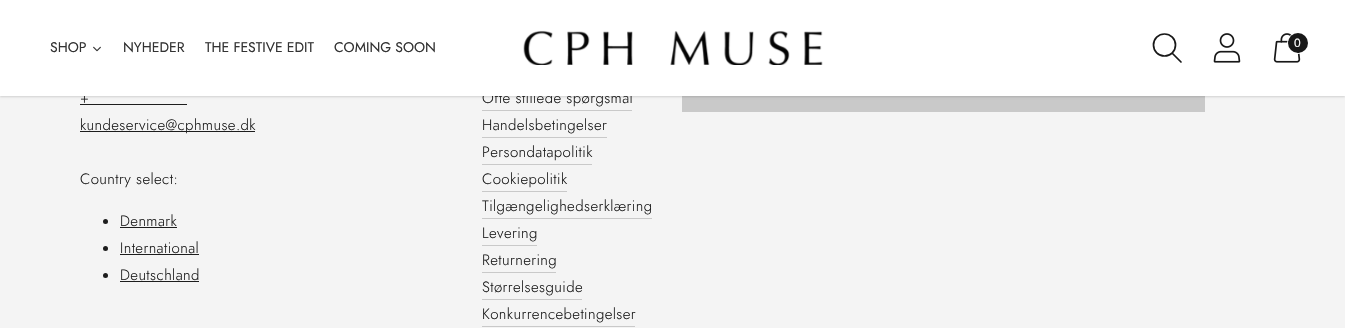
void draw(SkCanvas* canvas) {
  SkPaint paint;
  paint.setAntiAlias(true);
  auto face = [&](const char* family, int weight, float size, bool italic = false) {
    SkFontStyle style(weight, SkFontStyle::kNormal_Width,
      italic ? SkFontStyle::kItalic_Slant : SkFontStyle::kUpright_Slant);
    SkFont result(fontMgr->matchFamilyStyle(family, style), size);
    result.setSubpixel(true);
    return result;
  };
  auto writeSpaced = [&](const char* s, float x, float y, const SkFont& font, const SkPaint& ink, float letter, float word) {
    std::vector<SkGlyphID> glyphs(font.countText(s, strlen(s), SkTextEncoding::kUTF8));
    std::vector<float> xs(glyphs.size());
    font.textToGlyphs(s, strlen(s), SkTextEncoding::kUTF8, glyphs);
    font.getXPos(glyphs, xs, x);
    float extra = 0;
    for (size_t i = 0; i < glyphs.size(); i++) {
      xs[i] += extra;
      extra += letter + word * (glyphs[i] == font.unicharToGlyph(' '));
    }
    canvas->drawTextBlob(SkTextBlob::MakeFromPosHGlyphs(glyphs, xs, y, font), 0, 0, ink);
  };
  auto paste = [&](const char* path, float x, float y, float w, float h) {
    auto image = SkImages::DeferredFromEncodedData(SkData::MakeFromFileName(path));
    canvas->drawImageRect(image, SkRect::MakeXYWH(x, y, w, h), SkSamplingOptions());
  };
  auto shape = [&](const char* data, bool evenOdd = false) {
    SkPath result = *SkParsePath::FromSVGString(data);
    if (evenOdd) result.setFillType(SkPathFillType::kEvenOdd);
    return result;
  };
  canvas->clear(0xfff4f4f4);
  paint.setColor(0xffc9c9c9);
  canvas->drawRect(SkRect::MakeXYWH(682, 96, 523, 16), paint);
  paint.setColor(0x26000000);
  paint.setMaskFilter(SkMaskFilter::MakeBlur(kNormal_SkBlurStyle, 1));
  canvas->drawRect(SkRect::MakeXYWH(0, 1, 1345, 96), paint);
  paint.setMaskFilter(nullptr);
  paint.setColor(0xff1d1d1d);
  canvas->drawRect(SkRect::MakeXYWH(80, 104, 107, 1), paint);
  canvas->drawRect(SkRect::MakeXYWH(80, 131, 175, 1), paint);
  canvas->drawCircle(105.5f, 221.5f, 2.5f, paint);
  canvas->drawRect(SkRect::MakeXYWH(120, 227, 57, 1), paint);
  canvas->drawCircle(105.5f, 248.5f, 2.5f, paint);
  canvas->drawRect(SkRect::MakeXYWH(120, 254, 79, 1), paint);
  canvas->drawCircle(105.5f, 275.5f, 2.5f, paint);
  {
    const struct { float x, y, w, h; SkColor color; } items[] = {
      {120, 281, 79, 1, 0xff1d1d1d},
      {482, 110, 150, 1, 0xffc9c9c9},
      {482, 137, 125, 1, 0xffc9c9c9},
      {482, 164, 110, 1, 0xffc9c9c9},
      {482, 191, 85, 1, 0xffc9c9c9},
      {482, 218, 170, 1, 0xffc9c9c9},
      {482, 245, 55, 1, 0xffc9c9c9},
      {482, 272, 74, 1, 0xffc9c9c9},
      {482, 299, 100, 1, 0xffc9c9c9},
      {482, 326, 153, 1, 0xffc9c9c9},
    };
    for (auto [x, y, w, h, color] : items) {
      paint.setColor(color);
      canvas->drawRect(SkRect::MakeXYWH(x, y, w, h), paint);
    }
  }
  auto f0 = face("Jost", 300, 15);
  paint.setColor(0xff1d1d1d);
  {
    const struct { const char* s; float x, y; } items[] = {
      {"+", 80, 103},
      {"kundeservice@cphmuse.dk", 80, 130},
      {"Country select:", 80, 184},
      {"Denmark", 120, 226},
      {"International", 120, 253},
      {"Deutschland", 120, 280},
      {"Ofte stillede spørgsmål", 482, 103},
    };
    for (auto [s, x, y] : items) {
      writeSpaced(s, x, y, f0, paint, 0.4f, 0);
    }
  }
  paint.setColor(0xffffffff);
  canvas->drawRect(SkRect::MakeXYWH(0, 0, 1345, 96), paint);
  auto f1 = face("Jost", 400, 14);
  paint.setColor(0xff333333);
  {
    const struct { const char* s; float x, y; } items[] = {
      {"COMING SOON", 334, 52},
      {"THE FESTIVE EDIT", 205, 52},
      {"NYHEDER", 123, 52},
    };
    for (auto [s, x, y] : items) {
      canvas->drawString(s, x, y, f1, paint);
    }
  }
  paste("img/1.png", 93, 46, 8, 6);
  canvas->drawString("SHOP", 50, 52, f1, paint);
  paste("img/4.png", 1273, 33, 28, 30);
  paint.setStroke(true);
  paint.setStrokeWidth(1);
  paint.setColor(0xffffffff);
  canvas->drawCircle(1298, 43, 10.5f, paint);
  paint.setStroke(false);
  paint.setColor(0xff181818);
  canvas->drawCircle(1298, 43, 10, paint);
  auto f2 = face("Liberation Sans", 400, 12);
  paint.setColor(0xffffffff);
  writeSpaced("0", 1294, 47, f2, paint, 0.4f, 0);
  paste("img/3.png", 1213, 33, 28, 30);
  paint.setStroke(true);
  paint.setStrokeWidth(1.7f);
  paint.setColor(0xff181818);
  canvas->drawCircle(1164.5f, 45, 11, paint);
  paint.setStrokeCap(SkPaint::kRound_Cap);
  paint.setStrokeJoin(SkPaint::kRound_Join);
  canvas->drawPath(shape("M1172.5 53.5L1181 62"), paint);
  paste("img/2.png", 523, 30, 300, 35);
  paint.setStroke(false);
  paint.setColor(0xff1d1d1d);
  {
    const struct { const char* s; float x, y; } items[] = {
      {"Handelsbetingelser", 482, 130},
      {"Persondatapolitik", 482, 157},
      {"Cookiepolitik", 482, 184},
      {"Tilgængelighedserklæring", 482, 211},
      {"Levering", 482, 238},
      {"Returnering", 482, 265},
      {"Størrelsesguide", 482, 292},
      {"Konkurrencebetingelser", 482, 319},
    };
    for (auto [s, x, y] : items) {
      writeSpaced(s, x, y, f0, paint, 0.4f, 0);
    }
  }
}
